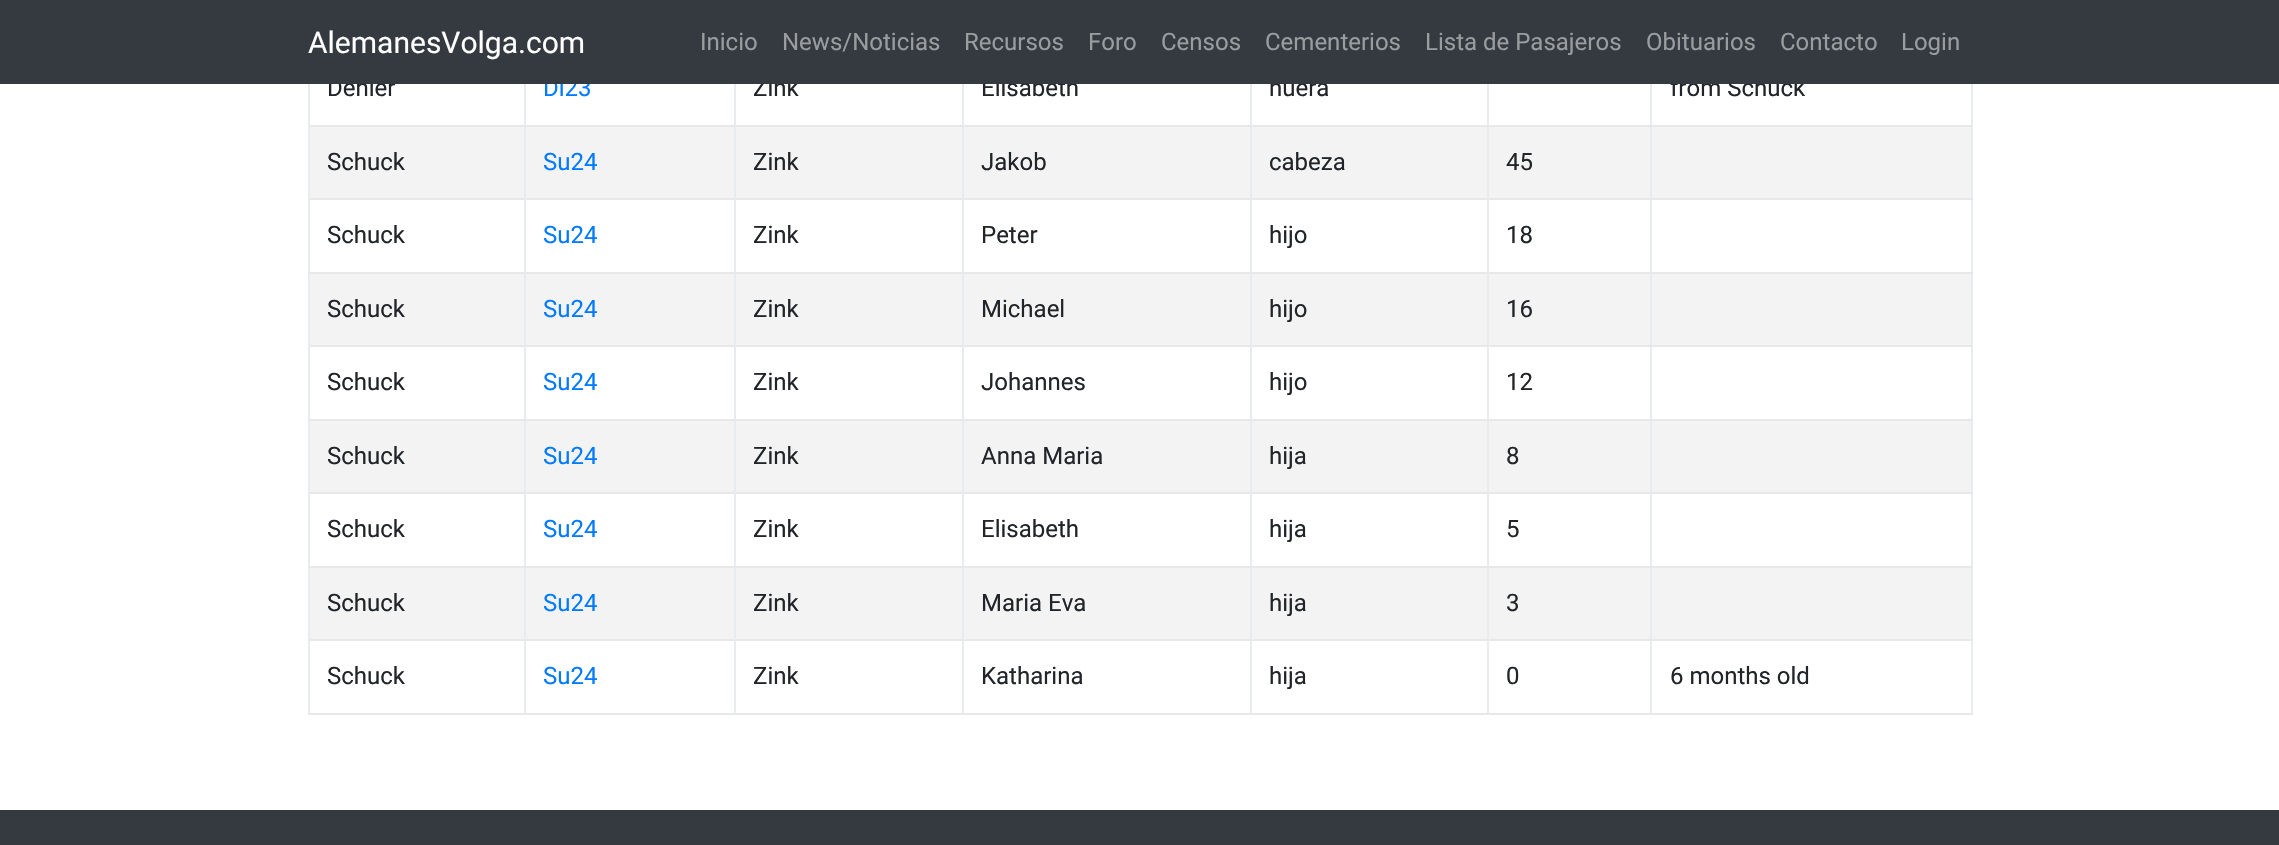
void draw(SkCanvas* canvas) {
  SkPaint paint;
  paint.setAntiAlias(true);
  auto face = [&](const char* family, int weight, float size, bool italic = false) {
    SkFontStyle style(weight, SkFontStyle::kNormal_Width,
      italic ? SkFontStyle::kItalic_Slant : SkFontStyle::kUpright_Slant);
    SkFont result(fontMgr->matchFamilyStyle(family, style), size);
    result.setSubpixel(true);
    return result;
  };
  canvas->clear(0xffffffff);
  {
    const struct { float x, y, w, h; SkColor color; } items[] = {
      {1971, 84, 2, 630, 0xffe9ecef},
      {310, 127, 1661, 71, 0xfff3f3f3},
      {310, 274, 1661, 71, 0xfff3f3f3},
      {310, 421, 1661, 71, 0xfff3f3f3},
      {310, 568, 1661, 71, 0xfff3f3f3},
      {1650, 713, 323, 2, 0xffe8e8e8},
      {1650, 639, 2, 75, 0xffe9ecef},
      {1650, 639, 323, 2, 0xffe8e8e8},
      {1650, 566, 2, 75, 0xffe9ecef},
      {1650, 566, 323, 2, 0xffe8e8e8},
      {1650, 492, 2, 75, 0xffe9ecef},
      {1650, 492, 323, 2, 0xffe8e8e8},
      {1650, 419, 2, 75, 0xffe9ecef},
      {1650, 419, 323, 2, 0xffe8e8e8},
      {1650, 345, 2, 75, 0xffe9ecef},
      {1650, 345, 323, 2, 0xffe8e8e8},
      {1650, 272, 2, 75, 0xffe9ecef},
      {1650, 272, 323, 2, 0xffe8e8e8},
      {1650, 198, 2, 75, 0xffe9ecef},
      {1650, 198, 323, 2, 0xffe8e8e8},
      {1650, 125, 2, 75, 0xffe9ecef},
      {1650, 125, 323, 2, 0xffe8e8e8},
      {1650, 84, 2, 42, 0xffe9ecef},
      {1487, 713, 165, 2, 0xffe8e8e8},
      {1487, 639, 2, 75, 0xffe9ecef},
      {1487, 639, 165, 2, 0xffe8e8e8},
      {1487, 566, 2, 75, 0xffe9ecef},
      {1487, 566, 165, 2, 0xffe8e8e8},
      {1487, 492, 2, 75, 0xffe9ecef},
      {1487, 492, 165, 2, 0xffe8e8e8},
      {1487, 419, 2, 75, 0xffe9ecef},
      {1487, 419, 165, 2, 0xffe8e8e8},
      {1487, 345, 2, 75, 0xffe9ecef},
      {1487, 345, 165, 2, 0xffe8e8e8},
      {1487, 272, 2, 75, 0xffe9ecef},
      {1487, 272, 165, 2, 0xffe8e8e8},
      {1487, 198, 2, 75, 0xffe9ecef},
      {1487, 198, 165, 2, 0xffe8e8e8},
      {1487, 125, 2, 75, 0xffe9ecef},
      {1487, 125, 165, 2, 0xffe8e8e8},
      {1487, 84, 2, 42, 0xffe9ecef},
      {1250, 713, 238, 2, 0xffe8e8e8},
      {1250, 639, 2, 75, 0xffe9ecef},
      {1250, 639, 238, 2, 0xffe8e8e8},
      {1250, 566, 2, 75, 0xffe9ecef},
      {1250, 566, 238, 2, 0xffe8e8e8},
      {1250, 492, 2, 75, 0xffe9ecef},
      {1250, 492, 238, 2, 0xffe8e8e8},
      {1250, 419, 2, 75, 0xffe9ecef},
      {1250, 419, 238, 2, 0xffe8e8e8},
      {1250, 345, 2, 75, 0xffe9ecef},
      {1250, 345, 238, 2, 0xffe8e8e8},
      {1250, 272, 2, 75, 0xffe9ecef},
      {1250, 272, 238, 2, 0xffe8e8e8},
      {1250, 198, 2, 75, 0xffe9ecef},
      {1250, 198, 238, 2, 0xffe8e8e8},
      {1250, 125, 2, 75, 0xffe9ecef},
      {1250, 125, 238, 2, 0xffe8e8e8},
      {1250, 84, 2, 42, 0xffe9ecef},
      {962, 713, 289, 2, 0xffe8e8e8},
      {962, 639, 2, 75, 0xffe9ecef},
      {962, 639, 289, 2, 0xffe8e8e8},
      {962, 566, 2, 75, 0xffe9ecef},
      {962, 566, 289, 2, 0xffe8e8e8},
      {962, 492, 2, 75, 0xffe9ecef},
      {962, 492, 289, 2, 0xffe8e8e8},
      {962, 419, 2, 75, 0xffe9ecef},
      {962, 419, 289, 2, 0xffe8e8e8},
      {962, 345, 2, 75, 0xffe9ecef},
      {962, 345, 289, 2, 0xffe8e8e8},
      {962, 272, 2, 75, 0xffe9ecef},
      {962, 272, 289, 2, 0xffe8e8e8},
      {962, 198, 2, 75, 0xffe9ecef},
      {962, 198, 289, 2, 0xffe8e8e8},
      {962, 125, 2, 75, 0xffe9ecef},
      {962, 125, 289, 2, 0xffe8e8e8},
      {962, 84, 2, 42, 0xffe9ecef},
      {734, 713, 229, 2, 0xffe8e8e8},
      {734, 639, 2, 75, 0xffe9ecef},
      {734, 639, 229, 2, 0xffe8e8e8},
      {734, 566, 2, 75, 0xffe9ecef},
      {734, 566, 229, 2, 0xffe8e8e8},
      {734, 492, 2, 75, 0xffe9ecef},
      {734, 492, 229, 2, 0xffe8e8e8},
      {734, 419, 2, 75, 0xffe9ecef},
      {734, 419, 229, 2, 0xffe8e8e8},
      {734, 345, 2, 75, 0xffe9ecef},
      {734, 345, 229, 2, 0xffe8e8e8},
      {734, 272, 2, 75, 0xffe9ecef},
      {734, 272, 229, 2, 0xffe8e8e8},
      {734, 198, 2, 75, 0xffe9ecef},
      {734, 198, 229, 2, 0xffe8e8e8},
      {734, 125, 2, 75, 0xffe9ecef},
      {734, 125, 229, 2, 0xffe8e8e8},
      {734, 84, 2, 42, 0xffe9ecef},
      {524, 713, 211, 2, 0xffe8e8e8},
      {524, 639, 2, 75, 0xffe9ecef},
      {524, 639, 211, 2, 0xffe8e8e8},
      {524, 566, 2, 75, 0xffe9ecef},
      {524, 566, 211, 2, 0xffe8e8e8},
      {524, 492, 2, 75, 0xffe9ecef},
      {524, 492, 211, 2, 0xffe8e8e8},
      {524, 419, 2, 75, 0xffe9ecef},
      {524, 419, 211, 2, 0xffe8e8e8},
      {524, 345, 2, 75, 0xffe9ecef},
      {524, 345, 211, 2, 0xffe8e8e8},
      {524, 272, 2, 75, 0xffe9ecef},
      {524, 272, 211, 2, 0xffe8e8e8},
      {524, 198, 2, 75, 0xffe9ecef},
      {524, 198, 211, 2, 0xffe8e8e8},
      {524, 125, 2, 75, 0xffe9ecef},
      {524, 125, 211, 2, 0xffe8e8e8},
      {524, 84, 2, 42, 0xffe9ecef},
      {308, 713, 217, 2, 0xffe8e8e8},
      {308, 639, 2, 75, 0xffe9ecef},
      {308, 639, 217, 2, 0xffe8e8e8},
      {308, 566, 2, 75, 0xffe9ecef},
      {308, 566, 217, 2, 0xffe8e8e8},
      {308, 492, 2, 75, 0xffe9ecef},
      {308, 492, 217, 2, 0xffe8e8e8},
      {308, 419, 2, 75, 0xffe9ecef},
      {308, 419, 217, 2, 0xffe8e8e8},
      {308, 345, 2, 75, 0xffe9ecef},
      {308, 345, 217, 2, 0xffe8e8e8},
      {308, 272, 2, 75, 0xffe9ecef},
      {308, 272, 217, 2, 0xffe8e8e8},
      {308, 198, 2, 75, 0xffe9ecef},
      {308, 198, 217, 2, 0xffe8e8e8},
      {308, 125, 2, 75, 0xffe9ecef},
      {308, 125, 217, 2, 0xffe8e8e8},
      {308, 84, 2, 42, 0xffe9ecef},
      {0, 810, 2279, 35, 0xff343a40},
    };
    for (auto [x, y, w, h, color] : items) {
      paint.setColor(color);
      canvas->drawRect(SkRect::MakeXYWH(x, y, w, h), paint);
    }
  }
  auto f0 = face("Roboto", 400, 24);
  paint.setColor(0xff212529);
  canvas->drawString("Dehler", 327, 96, f0, paint);
  paint.setColor(0xff007bff);
  canvas->drawString("Dl23", 543, 96, f0, paint);
  paint.setColor(0xff212529);
  {
    const struct { const char* s; float x, y; } items[] = {
      {"Zink", 753, 96},
      {"Elisabeth", 981, 96},
      {"nuera", 1269, 96},
      {"from Schuck", 1670, 96},
    };
    for (auto [s, x, y] : items) {
      canvas->drawString(s, x, y, f0, paint);
    }
  }
  paint.setColor(0xff343a40);
  canvas->drawRect(SkRect::MakeXYWH(0, 0, 2279, 84), paint);
  paint.setColor(0xff9a9da0);
  {
    const struct { const char* s; float x, y; } items[] = {
      {"Login", 1901, 50},
      {"Contacto", 1780, 50},
      {"Obituarios", 1646, 50},
      {"Lista de Pasajeros", 1425, 50},
      {"Cementerios", 1265, 50},
      {"Censos", 1161, 50},
      {"Foro", 1088, 50},
      {"Recursos", 964, 50},
      {"News/Noticias", 782, 50},
      {"Inicio", 700, 50},
    };
    for (auto [s, x, y] : items) {
      canvas->drawString(s, x, y, f0, paint);
    }
  }
  auto f1 = face("Roboto", 400, 30);
  paint.setColor(0xffffffff);
  canvas->drawString("AlemanesVolga.com", 308, 53, f1, paint);
  paint.setColor(0xff212529);
  canvas->drawString("Schuck", 327, 170, f0, paint);
  paint.setColor(0xff007bff);
  canvas->drawString("Su24", 543, 170, f0, paint);
  paint.setColor(0xff212529);
  {
    const struct { const char* s; float x, y; } items[] = {
      {"Zink", 753, 170},
      {"Jakob", 981, 170},
      {"cabeza", 1269, 170},
      {"45", 1506, 170},
      {"Schuck", 327, 243},
    };
    for (auto [s, x, y] : items) {
      canvas->drawString(s, x, y, f0, paint);
    }
  }
  paint.setColor(0xff007bff);
  canvas->drawString("Su24", 543, 243, f0, paint);
  paint.setColor(0xff212529);
  {
    const struct { const char* s; float x, y; } items[] = {
      {"Zink", 753, 243},
      {"Peter", 981, 243},
      {"hijo", 1269, 243},
      {"18", 1506, 243},
      {"Schuck", 327, 317},
    };
    for (auto [s, x, y] : items) {
      canvas->drawString(s, x, y, f0, paint);
    }
  }
  paint.setColor(0xff007bff);
  canvas->drawString("Su24", 543, 317, f0, paint);
  paint.setColor(0xff212529);
  {
    const struct { const char* s; float x, y; } items[] = {
      {"Zink", 753, 317},
      {"Michael", 981, 317},
      {"hijo", 1269, 317},
      {"16", 1506, 317},
      {"Schuck", 327, 390},
    };
    for (auto [s, x, y] : items) {
      canvas->drawString(s, x, y, f0, paint);
    }
  }
  paint.setColor(0xff007bff);
  canvas->drawString("Su24", 543, 390, f0, paint);
  paint.setColor(0xff212529);
  {
    const struct { const char* s; float x, y; } items[] = {
      {"Zink", 753, 390},
      {"Johannes", 981, 390},
      {"hijo", 1269, 390},
      {"12", 1506, 390},
      {"Schuck", 327, 464},
    };
    for (auto [s, x, y] : items) {
      canvas->drawString(s, x, y, f0, paint);
    }
  }
  paint.setColor(0xff007bff);
  canvas->drawString("Su24", 543, 464, f0, paint);
  paint.setColor(0xff212529);
  {
    const struct { const char* s; float x, y; } items[] = {
      {"Zink", 753, 464},
      {"Anna Maria", 981, 464},
      {"hija", 1269, 464},
      {"8", 1506, 464},
      {"Schuck", 327, 537},
    };
    for (auto [s, x, y] : items) {
      canvas->drawString(s, x, y, f0, paint);
    }
  }
  paint.setColor(0xff007bff);
  canvas->drawString("Su24", 543, 537, f0, paint);
  paint.setColor(0xff212529);
  {
    const struct { const char* s; float x, y; } items[] = {
      {"Zink", 753, 537},
      {"Elisabeth", 981, 537},
      {"hija", 1269, 537},
      {"5", 1506, 537},
      {"Schuck", 327, 611},
    };
    for (auto [s, x, y] : items) {
      canvas->drawString(s, x, y, f0, paint);
    }
  }
  paint.setColor(0xff007bff);
  canvas->drawString("Su24", 543, 611, f0, paint);
  paint.setColor(0xff212529);
  {
    const struct { const char* s; float x, y; } items[] = {
      {"Zink", 753, 611},
      {"Maria Eva", 981, 611},
      {"hija", 1269, 611},
      {"3", 1506, 611},
      {"Schuck", 327, 684},
    };
    for (auto [s, x, y] : items) {
      canvas->drawString(s, x, y, f0, paint);
    }
  }
  paint.setColor(0xff007bff);
  canvas->drawString("Su24", 543, 684, f0, paint);
  paint.setColor(0xff212529);
  {
    const struct { const char* s; float x, y; } items[] = {
      {"Zink", 753, 684},
      {"Katharina", 981, 684},
      {"hija", 1269, 684},
      {"0", 1506, 684},
      {"6 months old", 1670, 684},
    };
    for (auto [s, x, y] : items) {
      canvas->drawString(s, x, y, f0, paint);
    }
  }
}
